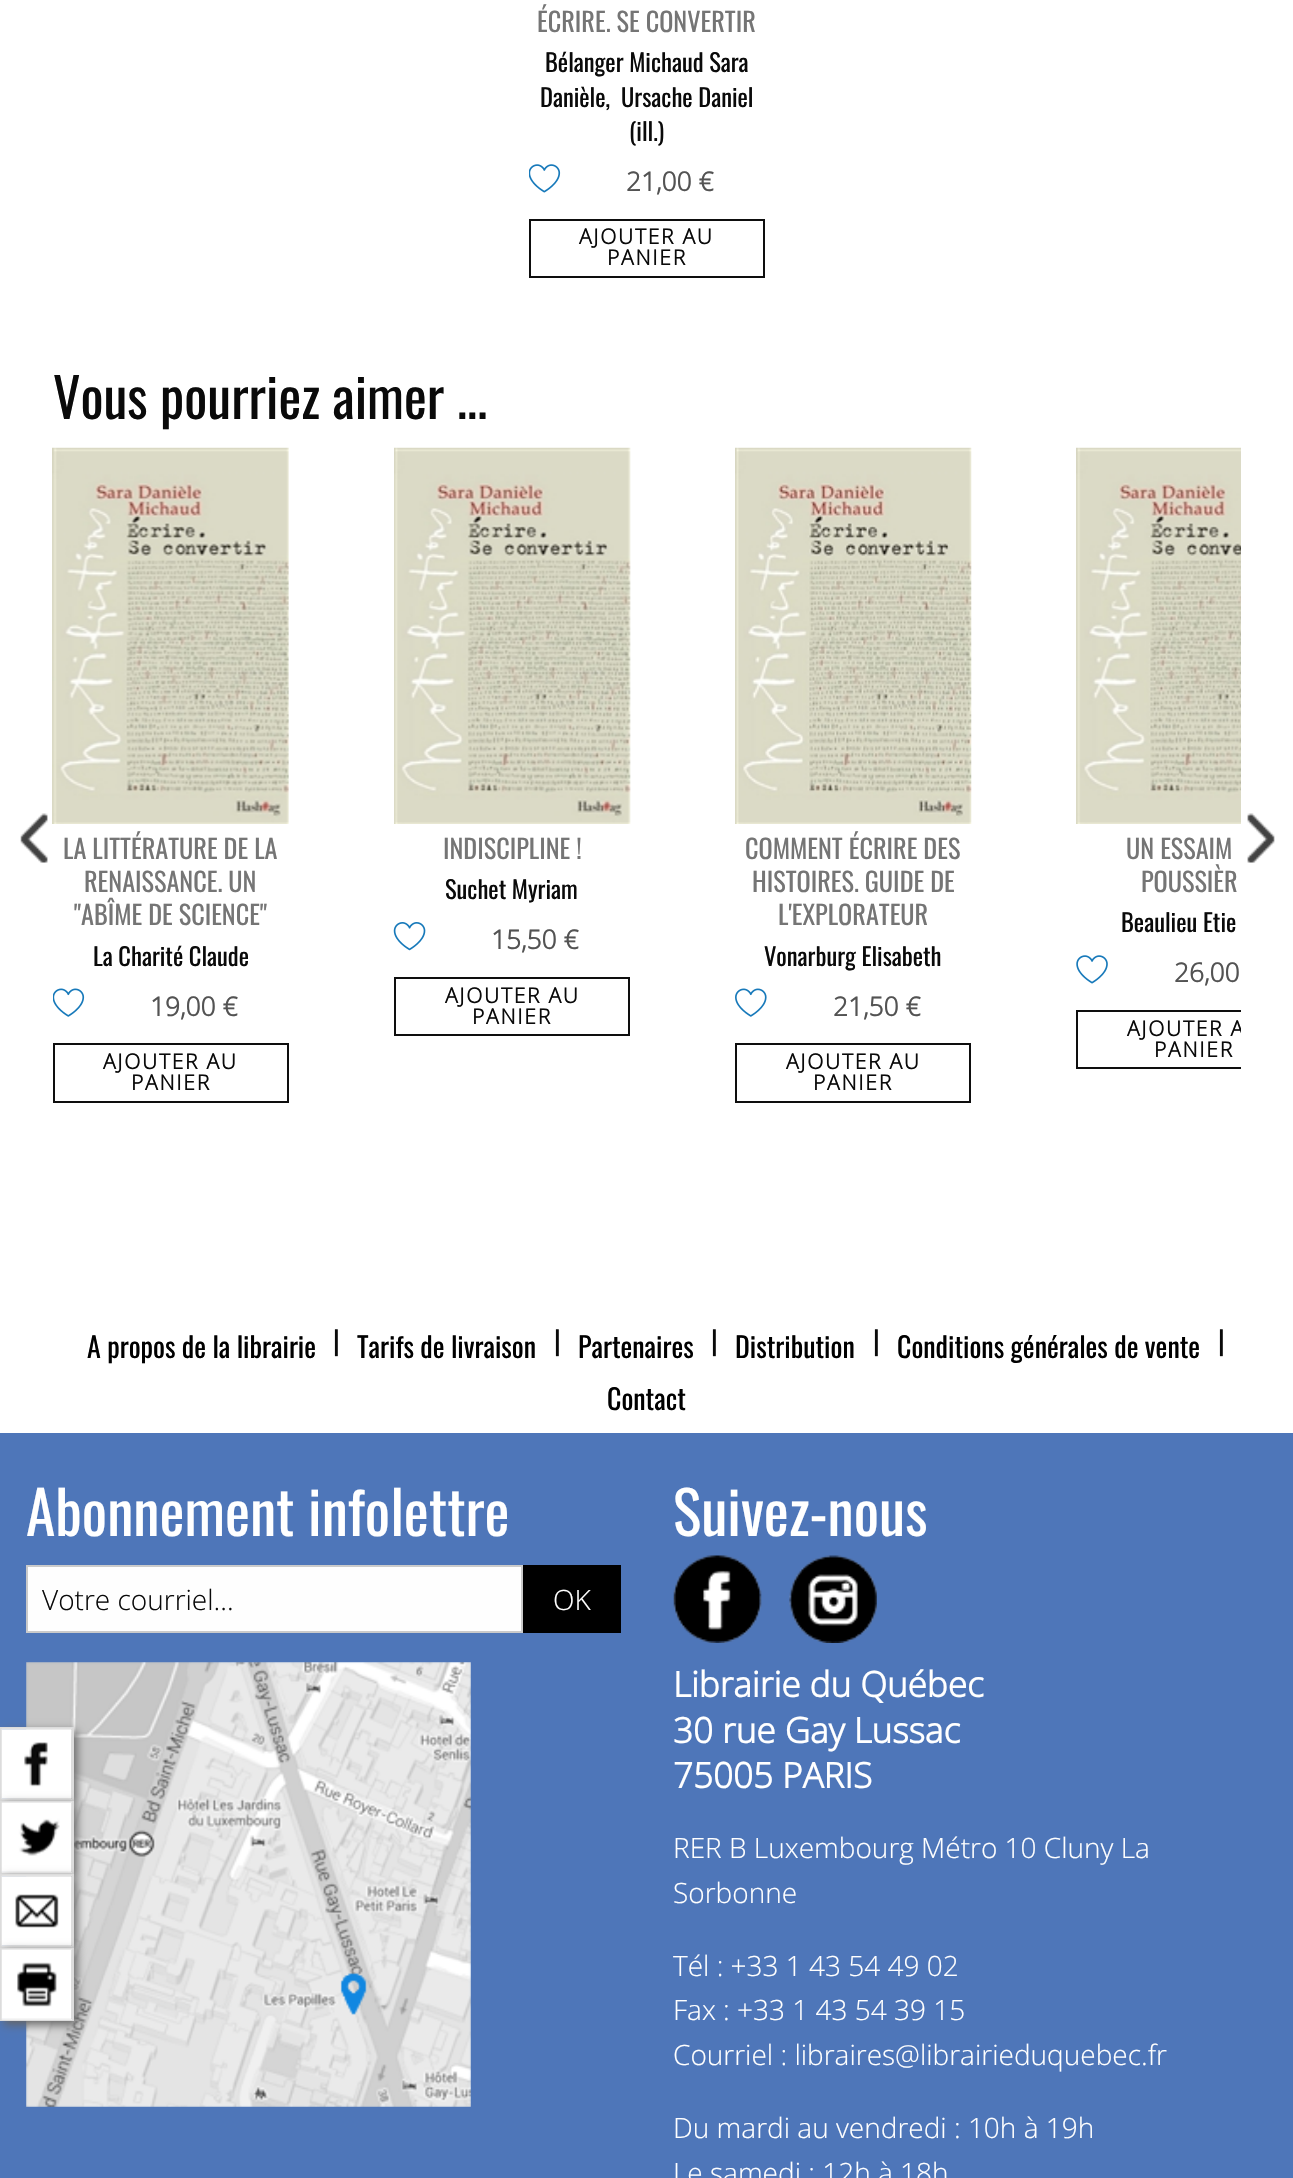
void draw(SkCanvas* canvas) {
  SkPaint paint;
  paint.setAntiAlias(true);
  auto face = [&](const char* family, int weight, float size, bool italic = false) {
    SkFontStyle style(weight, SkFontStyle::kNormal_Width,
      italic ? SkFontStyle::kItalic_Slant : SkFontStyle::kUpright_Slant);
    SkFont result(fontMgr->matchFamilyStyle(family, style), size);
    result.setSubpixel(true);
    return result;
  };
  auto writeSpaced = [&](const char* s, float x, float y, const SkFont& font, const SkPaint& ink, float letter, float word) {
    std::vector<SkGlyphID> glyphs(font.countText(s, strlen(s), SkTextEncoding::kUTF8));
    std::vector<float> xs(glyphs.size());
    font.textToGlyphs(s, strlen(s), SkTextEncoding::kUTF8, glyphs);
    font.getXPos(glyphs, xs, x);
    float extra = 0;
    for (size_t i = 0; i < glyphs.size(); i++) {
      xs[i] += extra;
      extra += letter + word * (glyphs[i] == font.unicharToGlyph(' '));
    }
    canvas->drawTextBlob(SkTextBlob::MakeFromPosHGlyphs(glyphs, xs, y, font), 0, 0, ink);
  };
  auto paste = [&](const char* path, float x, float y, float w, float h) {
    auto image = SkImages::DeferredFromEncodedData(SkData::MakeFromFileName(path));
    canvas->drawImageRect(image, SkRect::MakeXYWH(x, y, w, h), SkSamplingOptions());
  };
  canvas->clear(0xffffffff);
  paste("img/1.png", 529, 164, 32, 29);
  paint.setStroke(true);
  paint.setStrokeWidth(2);
  paint.setColor(0xff0e0e0e);
  canvas->drawRect(SkRect::MakeXYWH(530, 220, 234, 57), paint);
  paste("img/2.png", 20, 813, 28, 50);
  paste("img/3.png", 1247, 813, 28, 50);
  paste("img/4.png", 52, 447, 237, 377);
  paste("img/5.png", 53, 988, 32, 29);
  canvas->drawRect(SkRect::MakeXYWH(54, 1044, 234, 58), paint);
  paste("img/6.png", 394, 447, 237, 377);
  paste("img/7.png", 393, 922, 33, 29);
  canvas->drawRect(SkRect::MakeXYWH(395, 978, 234, 57), paint);
  paste("img/8.png", 735, 447, 237, 377);
  paste("img/9.png", 735, 988, 32, 29);
  canvas->drawRect(SkRect::MakeXYWH(736, 1044, 234, 58), paint);
  paste("img/10.png", 1076, 447, 165, 377);
  paste("img/11.png", 1076, 955, 32, 29);
  canvas->save();
  canvas->clipRect(SkRect::MakeXYWH(53, 448, 1188, 784));
  canvas->drawRect(SkRect::MakeXYWH(1077, 1011, 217, 57), paint);
  canvas->restore();
  paint.setStroke(false);
  paint.setColor(0xff4e76b9);
  canvas->drawRect(SkRect::MakeXYWH(0, 1433, 1293, 745), paint);
  paste("img/18.png", 26, 1662, 445, 445);
  paint.setColor(0xff656565);
  paint.setMaskFilter(SkMaskFilter::MakeBlur(kNormal_SkBlurStyle, 4.5f));
  canvas->drawRect(SkRect::MakeXYWH(4, 1731, 73, 73), paint);
  paint.setMaskFilter(nullptr);
  paint.setStroke(true);
  paint.setColor(0xffdcdcdc);
  canvas->drawRect(SkRect::MakeXYWH(1, 1728, 72, 72), paint);
  paste("img/12.png", 1, 1728, 71, 72);
  paint.setStroke(false);
  paint.setColor(0xff656565);
  paint.setMaskFilter(SkMaskFilter::MakeBlur(kNormal_SkBlurStyle, 4.5f));
  canvas->drawRect(SkRect::MakeXYWH(4, 1804, 73, 74), paint);
  paint.setMaskFilter(nullptr);
  paint.setStroke(true);
  paint.setColor(0xffdcdcdc);
  canvas->drawRect(SkRect::MakeXYWH(1, 1802, 72, 71), paint);
  paste("img/13.png", 1, 1802, 71, 71);
  paint.setStroke(false);
  paint.setColor(0xff656565);
  paint.setMaskFilter(SkMaskFilter::MakeBlur(kNormal_SkBlurStyle, 4.5f));
  canvas->drawRect(SkRect::MakeXYWH(4, 1878, 73, 73), paint);
  paint.setMaskFilter(nullptr);
  paint.setStroke(true);
  paint.setColor(0xffdcdcdc);
  canvas->drawRect(SkRect::MakeXYWH(1, 1875, 72, 72), paint);
  paste("img/14.png", 1, 1875, 71, 72);
  paint.setStroke(false);
  paint.setColor(0xff656565);
  paint.setMaskFilter(SkMaskFilter::MakeBlur(kNormal_SkBlurStyle, 4.5f));
  canvas->drawRect(SkRect::MakeXYWH(4, 1951, 73, 74), paint);
  paint.setMaskFilter(nullptr);
  paint.setStroke(true);
  paint.setColor(0xffdcdcdc);
  canvas->drawRect(SkRect::MakeXYWH(1, 1949, 72, 71), paint);
  paste("img/15.png", 1, 1949, 71, 71);
  paint.setStroke(false);
  paint.setColor(0xfffefefe);
  canvas->drawRect(SkRect::MakeXYWH(27, 1566, 495, 66), paint);
  paint.setStroke(true);
  paint.setColor(0xffcacaca);
  canvas->drawRect(SkRect::MakeXYWH(27, 1566, 495, 66), paint);
  paint.setStroke(false);
  paint.setColor(0xff000000);
  canvas->drawRect(SkRect::MakeXYWH(523, 1565, 98, 68), paint);
  paste("img/16.png", 673, 1555, 89, 88);
  paste("img/17.png", 789, 1555, 88, 88);
  auto f0 = face("Oswald", 400, 26.25f);
  paint.setColor(0xff757575);
  canvas->drawString("ÉCRIRE. SE CONVERTIR", 537, 32, f0, paint);
  auto f1 = face("Oswald", 400, 24.5f);
  paint.setColor(0xff0a0a0a);
  {
    const struct { const char* s; float x, y; } items[] = {
      {"Bélanger Michaud Sara", 545, 72},
      {"Danièle,", 540, 107},
      {"Ursache Daniel", 621, 107},
      {"(ill.)", 629, 141},
    };
    for (auto [s, x, y] : items) {
      canvas->drawString(s, x, y, f1, paint);
    }
  }
  auto f2 = face("Open Sans", 700, 26.25f);
  paint.setColor(0xff535353);
  canvas->drawString("21,00 €", 626, 191, f2, paint);
  auto f3 = face("Open Sans", 700, 21);
  paint.setColor(0xff0a0a0a);
  writeSpaced("AJOUTER AU", 579, 244, f3, paint, 1.75f, 0);
  writeSpaced("PANIER", 607, 265, f3, paint, 1.75f, 0);
  auto f4 = face("Oswald", 400, 54.25f);
  canvas->drawString("Vous pourriez aimer ...", 53, 419, f4, paint);
  paint.setColor(0xff757575);
  {
    const struct { const char* s; float x, y; } items[] = {
      {"LA LITTÉRATURE DE LA", 63, 859},
      {"RENAISSANCE. UN", 84, 892},
      {"\"ABÎME DE SCIENCE\"", 74, 925},
    };
    for (auto [s, x, y] : items) {
      canvas->drawString(s, x, y, f0, paint);
    }
  }
  paint.setColor(0xff0a0a0a);
  canvas->drawString("La Charité Claude", 93, 966, f1, paint);
  paint.setColor(0xff535353);
  canvas->drawString("19,00 €", 150, 1016, f2, paint);
  paint.setColor(0xff0a0a0a);
  writeSpaced("AJOUTER AU", 103, 1069, f3, paint, 1.75f, 0);
  writeSpaced("PANIER", 131, 1090, f3, paint, 1.75f, 0);
  paint.setColor(0xff757575);
  canvas->drawString("INDISCIPLINE !", 443, 859, f0, paint);
  paint.setColor(0xff0a0a0a);
  canvas->drawString("Suchet Myriam", 445, 899, f1, paint);
  paint.setColor(0xff535353);
  canvas->drawString("15,50 €", 491, 949, f2, paint);
  paint.setColor(0xff0a0a0a);
  writeSpaced("AJOUTER AU", 445, 1003, f3, paint, 1.75f, 0);
  writeSpaced("PANIER", 472, 1024, f3, paint, 1.75f, 0);
  paint.setColor(0xff757575);
  {
    const struct { const char* s; float x, y; } items[] = {
      {"COMMENT ÉCRIRE DES", 745, 859},
      {"HISTOIRES. GUIDE DE", 752, 892},
      {"L'EXPLORATEUR", 778, 925},
    };
    for (auto [s, x, y] : items) {
      canvas->drawString(s, x, y, f0, paint);
    }
  }
  paint.setColor(0xff0a0a0a);
  canvas->drawString("Vonarburg Elisabeth", 764, 966, f1, paint);
  paint.setColor(0xff535353);
  canvas->drawString("21,50 €", 833, 1016, f2, paint);
  paint.setColor(0xff0a0a0a);
  writeSpaced("AJOUTER AU", 786, 1069, f3, paint, 1.75f, 0);
  writeSpaced("PANIER", 813, 1090, f3, paint, 1.75f, 0);
  paint.setColor(0xff757575);
  canvas->drawString("UN ESSAIM", 1126, 859, f0, paint);
  canvas->drawString("POUSSIÈR", 1141, 892, f0, paint);
  paint.setColor(0xff0a0a0a);
  canvas->drawString("Beaulieu Etie", 1121, 932, f1, paint);
  paint.setColor(0xff535353);
  canvas->drawString("26,00", 1174, 982, f2, paint);
  canvas->save();
  canvas->clipRect(SkRect::MakeXYWH(53, 448, 1188, 784));
  paint.setColor(0xff0a0a0a);
  writeSpaced("AJOUTER A", 1127, 1036, f3, paint, 1.75f, 0);
  canvas->restore();
  writeSpaced("PANIER", 1154, 1057, f3, paint, 1.75f, 0);
  auto f5 = face("Oswald", 400, 28);
  paint.setColor(0xff000000);
  canvas->drawString("A propos de la librairie", 87, 1358, f5, paint);
  paint.setColor(0xff0a0a0a);
  canvas->drawString("|", 333, 1352, f5, paint);
  paint.setColor(0xff000000);
  canvas->drawString("Tarifs de livraison", 357, 1358, f5, paint);
  paint.setColor(0xff0a0a0a);
  canvas->drawString("|", 554, 1352, f5, paint);
  paint.setColor(0xff000000);
  canvas->drawString("Partenaires", 578, 1358, f5, paint);
  paint.setColor(0xff0a0a0a);
  canvas->drawString("|", 711, 1352, f5, paint);
  paint.setColor(0xff000000);
  canvas->drawString("Distribution", 735, 1358, f5, paint);
  paint.setColor(0xff0a0a0a);
  canvas->drawString("|", 873, 1352, f5, paint);
  paint.setColor(0xff000000);
  canvas->drawString("Conditions générales de vente", 897, 1358, f5, paint);
  paint.setColor(0xff0a0a0a);
  canvas->drawString("|", 1218, 1352, f5, paint);
  paint.setColor(0xff000000);
  canvas->drawString("Contact", 607, 1410, f5, paint);
  auto f6 = face("Oswald", 400, 59.5f);
  paint.setColor(0xffffffff);
  canvas->drawString("Abonnement infolettre", 26, 1536, f6, paint);
  auto f7 = face("Open Sans", 300, 28);
  paint.setColor(0xff0a0a0a);
  canvas->drawString("Votre courriel...", 42, 1610, f7, paint);
  paint.setColor(0xffffffff);
  canvas->drawString("OK", 553, 1610, f7, paint);
  canvas->drawString("Suivez-nous", 673, 1536, f6, paint);
  auto f8 = face("Open Sans", 700, 35);
  {
    const struct { const char* s; float x, y; } items[] = {
      {"Librairie du Québec", 673, 1697},
      {"30 rue Gay Lussac", 673, 1743},
      {"75005 PARIS", 673, 1788},
    };
    for (auto [s, x, y] : items) {
      canvas->drawString(s, x, y, f8, paint);
    }
  }
  {
    const struct { const char* s; float x, y; } items[] = {
      {"RER B Luxembourg Métro 10 Cluny La", 673, 1858},
      {"Sorbonne", 673, 1903},
      {"Tél : +33 1 43 54 49 02", 673, 1976},
      {"Fax : +33 1 43 54 39 15", 673, 2020},
      {"Courriel : libraires@librairieduquebec.fr", 673, 2065},
      {"Du mardi au vendredi : 10h à 19h", 673, 2138},
      {"Le samedi : 12h à 18h", 673, 2183},
    };
    for (auto [s, x, y] : items) {
      canvas->drawString(s, x, y, f7, paint);
    }
  }
}
